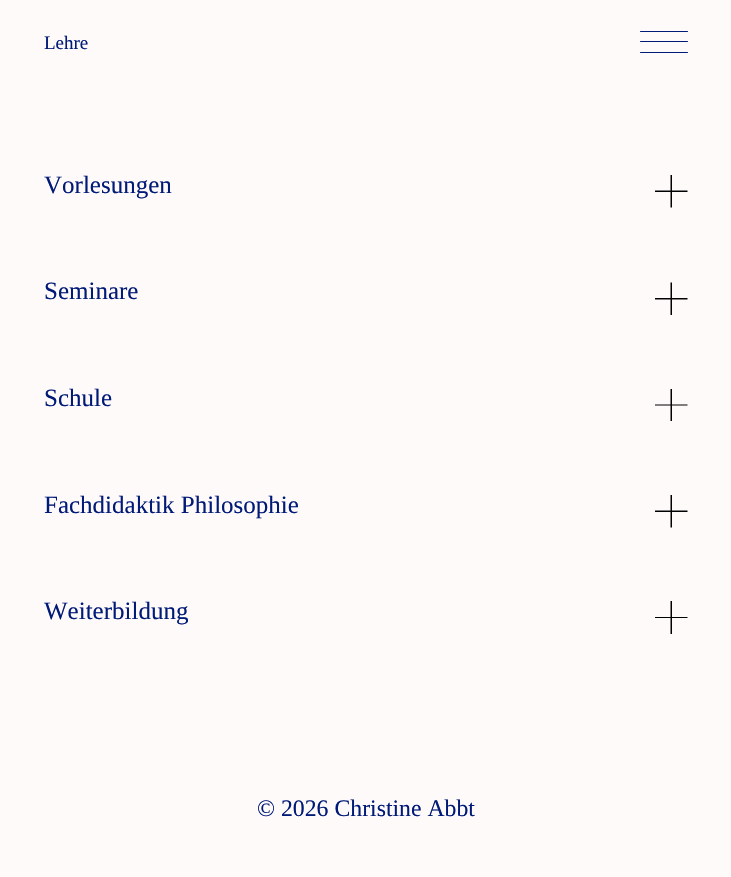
void draw(SkCanvas* canvas) {
  SkPaint paint;
  paint.setAntiAlias(true);
  auto face = [&](const char* family, int weight, float size, bool italic = false) {
    SkFontStyle style(weight, SkFontStyle::kNormal_Width,
      italic ? SkFontStyle::kItalic_Slant : SkFontStyle::kUpright_Slant);
    SkFont result(fontMgr->matchFamilyStyle(family, style), size);
    result.setSubpixel(true);
    return result;
  };
  auto shape = [&](const char* data, bool evenOdd = false) {
    SkPath result = *SkParsePath::FromSVGString(data);
    if (evenOdd) result.setFillType(SkPathFillType::kEvenOdd);
    return result;
  };
  canvas->clear(0xfffffafa);
  paint.setColor(0xff001a77);
  canvas->drawRoundRect(SkRect::MakeXYWH(640, 31, 48, 1), 0.5f, 0.5f, paint);
  canvas->drawRoundRect(SkRect::MakeXYWH(640, 41, 48, 1), 0.5f, 0.5f, paint);
  canvas->drawRoundRect(SkRect::MakeXYWH(640, 52, 48, 1), 0.5f, 0.5f, paint);
  paint.setColor(0xff000000);
  canvas->drawPath(shape("M687.5 190.5H672V175H670.5V190.5H655V192H670.5V207.5H672V192H687.5Z"), paint);
  canvas->drawPath(shape("M687.5 298H672V282.5H670.5V298H655V299.5H670.5V315H672V299.5H687.5Z"), paint);
  canvas->drawPath(shape("M687.5 404.5H672V389H670.5V404.5H655V405.5H670.5V421H672V405.5H687.5Z"), paint);
  canvas->drawPath(shape("M687.5 510.5H672V495H670.5V510.5H655V512H670.5V527.5H672V512H687.5Z"), paint);
  canvas->drawPath(shape("M687.5 617H672V601H670.5V617H655V618H670.5V634H672V618H687.5Z"), paint);
  auto f0 = face("Liberation Serif", 400, 19);
  paint.setColor(0xff001a77);
  canvas->drawString("Lehre", 44, 49, f0, paint);
  auto f1 = face("Liberation Serif", 400, 25);
  {
    const struct { const char* s; float x, y; } items[] = {
      {"Vorlesungen", 44, 193},
      {"Seminare", 44, 299},
      {"Schule", 44, 406},
      {"Fachdidaktik Philosophie", 44, 513},
      {"Weiterbildung", 44, 619},
    };
    for (auto [s, x, y] : items) {
      canvas->drawString(s, x, y, f1, paint);
    }
  }
  auto f2 = face("Liberation Serif", 400, 23.75f);
  canvas->drawString("© 2026 Christine Abbt", 257, 816, f2, paint);
}
